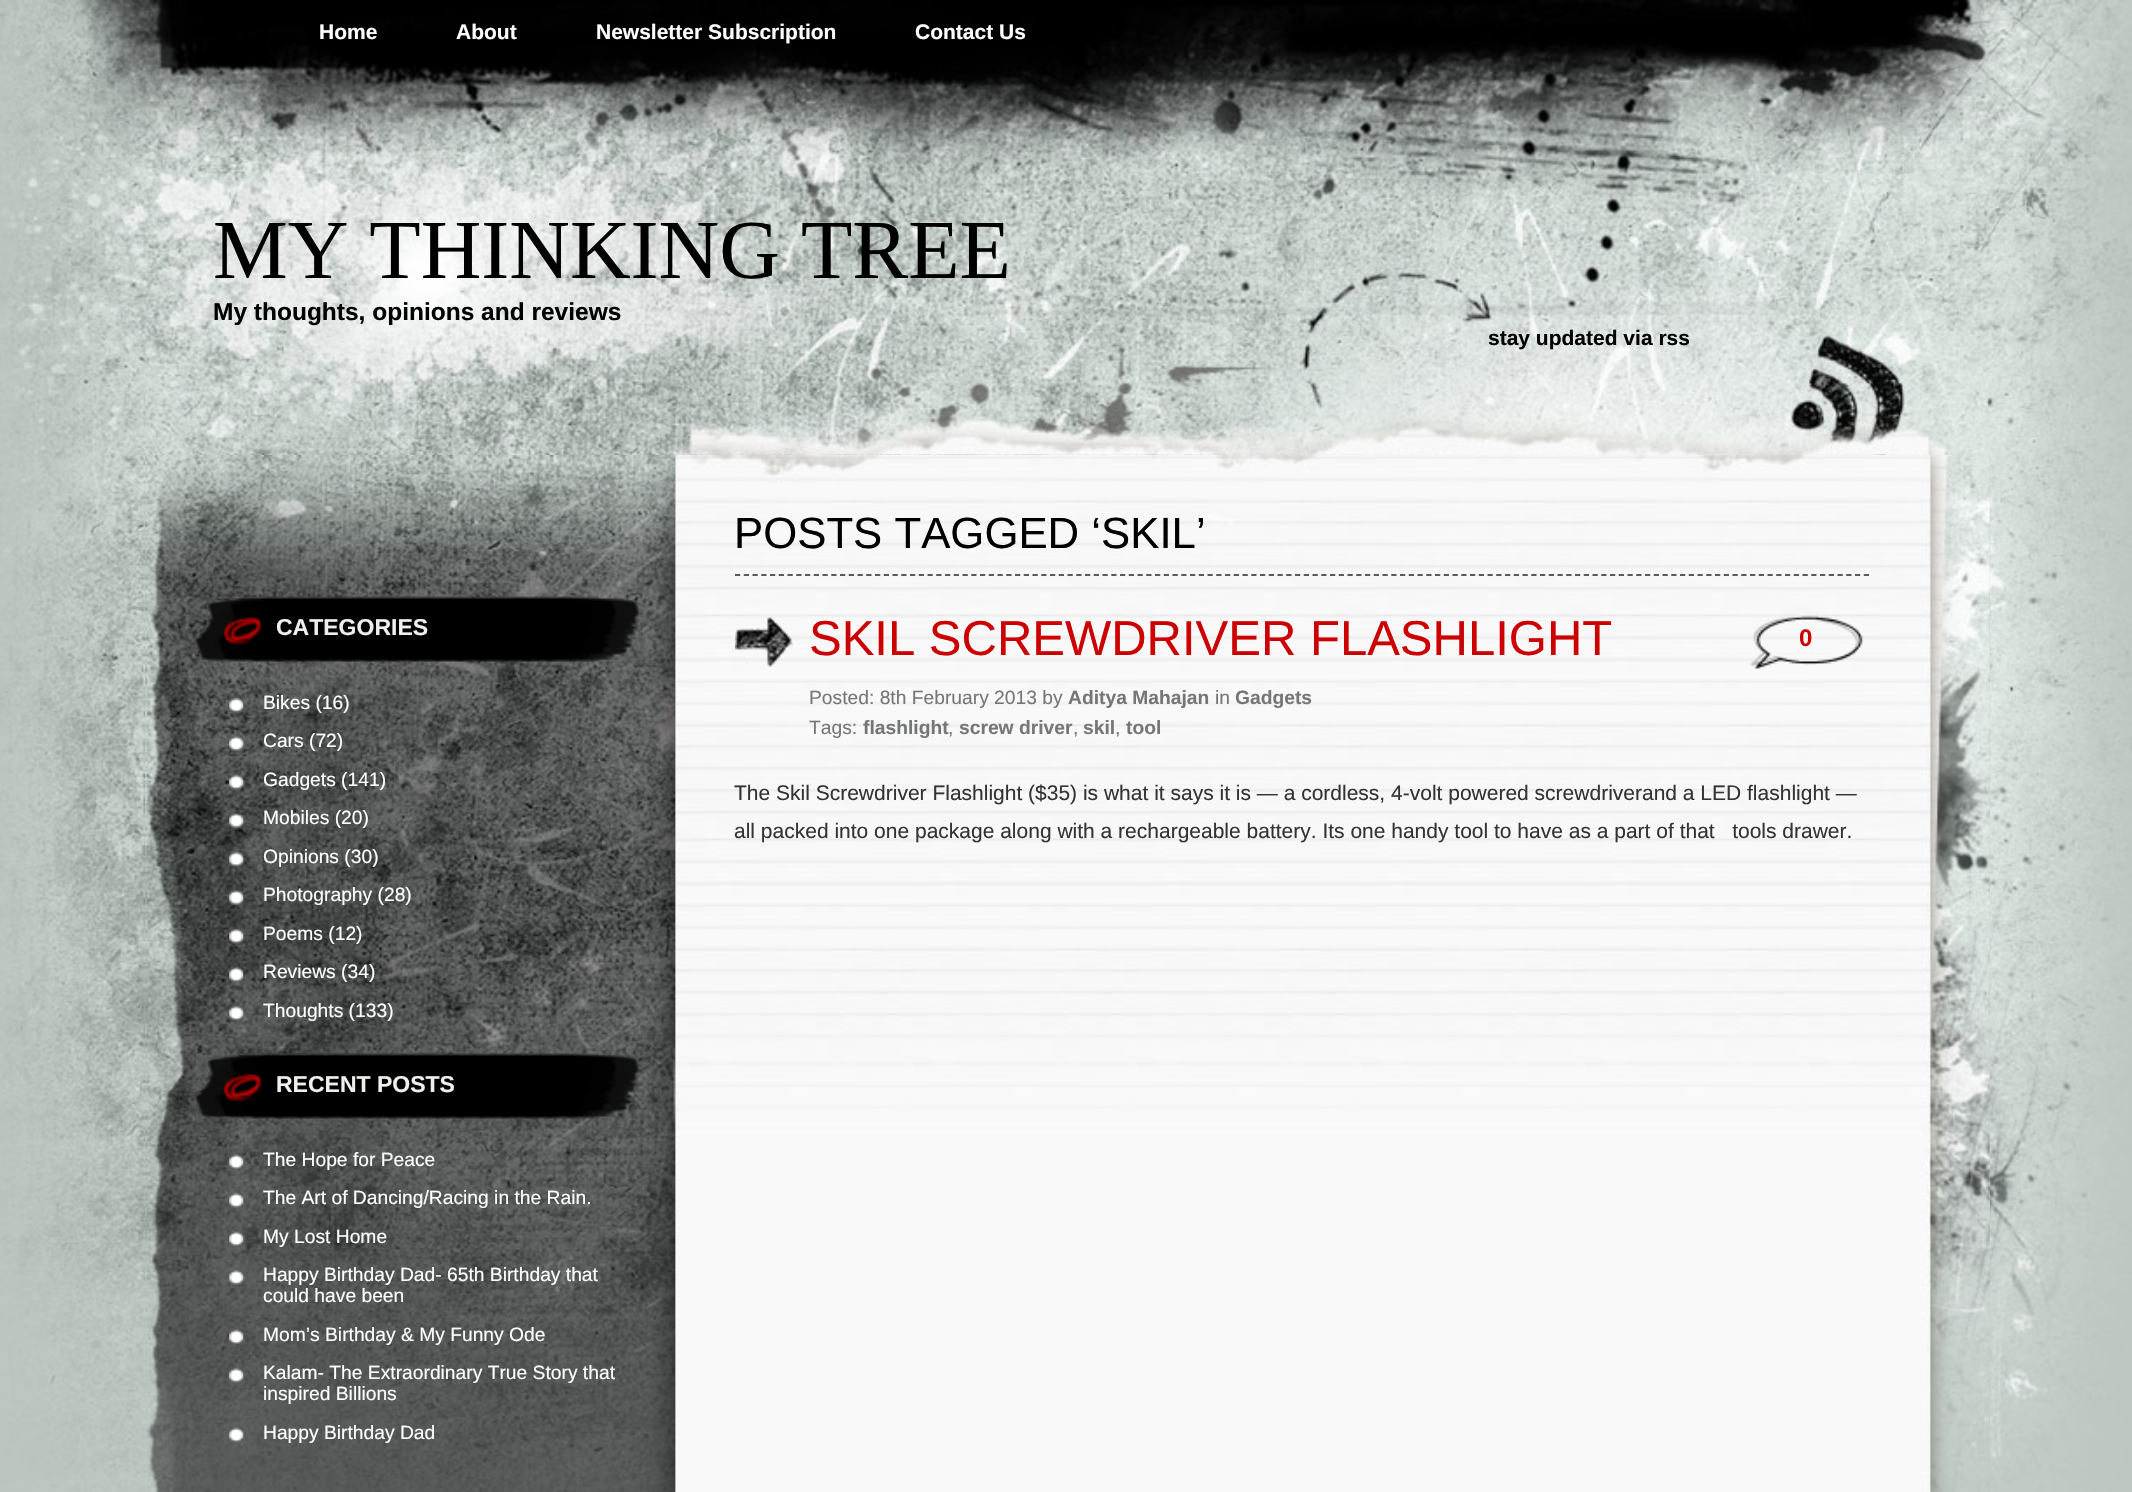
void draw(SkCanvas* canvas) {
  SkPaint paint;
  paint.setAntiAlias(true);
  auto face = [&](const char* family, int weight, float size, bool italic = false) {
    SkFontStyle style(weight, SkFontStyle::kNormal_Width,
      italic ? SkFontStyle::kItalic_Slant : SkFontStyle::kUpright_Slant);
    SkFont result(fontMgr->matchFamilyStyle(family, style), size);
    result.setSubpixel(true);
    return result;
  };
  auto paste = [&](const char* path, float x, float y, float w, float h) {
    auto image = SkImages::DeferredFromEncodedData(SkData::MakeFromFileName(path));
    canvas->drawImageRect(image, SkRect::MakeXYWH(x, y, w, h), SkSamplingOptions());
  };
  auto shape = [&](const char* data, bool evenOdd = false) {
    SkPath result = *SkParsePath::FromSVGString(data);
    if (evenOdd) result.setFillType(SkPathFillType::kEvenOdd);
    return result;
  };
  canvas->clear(0xffffffff);
  paste("img/1.png", 0, 0, 2132, 1492);
  paste("img/2.png", 145, 455, 1845, 1037);
  paste("img/3.png", 145, 455, 531, 1037);
  paste("img/4.png", 194, 596, 447, 66);
  paste("img/5.png", 229, 697, 15, 16);
  paste("img/6.png", 229, 736, 15, 15);
  paste("img/7.png", 229, 774, 15, 16);
  paste("img/8.png", 229, 813, 15, 15);
  paste("img/9.png", 229, 851, 15, 16);
  paste("img/10.png", 229, 890, 15, 15);
  paste("img/11.png", 229, 928, 15, 16);
  paste("img/12.png", 229, 967, 15, 15);
  paste("img/13.png", 229, 1005, 15, 16);
  paste("img/14.png", 194, 1053, 446, 66);
  paste("img/15.png", 229, 1154, 15, 15);
  paste("img/16.png", 229, 1193, 15, 15);
  paste("img/17.png", 229, 1231, 15, 15);
  paste("img/18.png", 229, 1270, 15, 15);
  paste("img/19.png", 229, 1329, 15, 15);
  paste("img/20.png", 229, 1368, 15, 15);
  paste("img/21.png", 229, 1427, 15, 15);
  paste("img/22.png", 675, 455, 1315, 1037);
  paint.setStroke(true);
  paint.setStrokeWidth(1.8f);
  paint.setColor(0xff575b59);
  paint.setPathEffect(SkDashPathEffect::Make({{5.25f, 3.5f}}, 0));
  canvas->drawPath(shape("M735 575H1869"), paint);
  paint.setPathEffect(nullptr);
  paste("img/23.png", 735, 617, 58, 50);
  paste("img/24.png", 1750, 615, 113, 54);
  auto f0 = face("Liberation Sans", 700, 21);
  paint.setStroke(false);
  paint.setColor(0xffffffff);
  {
    const struct { const char* s; float x, y; } items[] = {
      {"Home", 319, 39},
      {"About", 456, 39},
      {"Newsletter Subscription", 596, 39},
      {"Contact Us", 915, 39},
    };
    for (auto [s, x, y] : items) {
      canvas->drawString(s, x, y, f0, paint);
    }
  }
  auto f1 = face("Liberation Serif", 400, 84);
  paint.setColor(0xff000000);
  canvas->drawString("MY THINKING TREE", 213, 278, f1, paint);
  auto f2 = face("Liberation Sans", 700, 24.5f);
  canvas->drawString("My thoughts, opinions and reviews", 213, 320, f2, paint);
  canvas->drawString("stay updated via rss", 1488, 345, f0, paint);
  auto f3 = face("Liberation Sans", 700, 23);
  paint.setColor(0xffeef0eb);
  canvas->drawString("CATEGORIES", 276, 635, f3, paint);
  auto f4 = face("Liberation Sans", 400, 19.25f);
  paint.setColor(0xffffffff);
  {
    const struct { const char* s; float x, y; } items[] = {
      {"Bikes (16)", 263, 709},
      {"Cars (72)", 263, 747},
      {"Gadgets (141)", 263, 786},
      {"Mobiles (20)", 263, 824},
      {"Opinions (30)", 263, 863},
      {"Photography (28)", 263, 901},
      {"Poems (12)", 263, 940},
      {"Reviews (34)", 263, 978},
      {"Thoughts (133)", 263, 1017},
    };
    for (auto [s, x, y] : items) {
      canvas->drawString(s, x, y, f4, paint);
    }
  }
  paint.setColor(0xffeef0eb);
  canvas->drawString("RECENT POSTS", 276, 1092, f3, paint);
  paint.setColor(0xffffffff);
  {
    const struct { const char* s; float x, y; } items[] = {
      {"The Hope for Peace", 263, 1166},
      {"The Art of Dancing/Racing in the Rain.", 263, 1204},
      {"My Lost Home", 263, 1243},
      {"Happy Birthday Dad- 65th Birthday that", 263, 1281},
      {"could have been", 263, 1302},
      {"Mom’s Birthday & My Funny Ode", 263, 1341},
      {"Kalam- The Extraordinary True Story that", 263, 1379},
      {"inspired Billions", 263, 1400},
      {"Happy Birthday Dad", 263, 1439},
    };
    for (auto [s, x, y] : items) {
      canvas->drawString(s, x, y, f4, paint);
    }
  }
  auto f5 = face("Liberation Sans", 400, 43.75f);
  paint.setColor(0xff000000);
  canvas->drawString("POSTS TAGGED ‘SKIL’", 734, 548, f5, paint);
  auto f6 = face("Liberation Sans", 400, 49);
  paint.setColor(0xffcc0000);
  canvas->drawString("SKIL SCREWDRIVER FLASHLIGHT", 809, 655, f6, paint);
  paint.setColor(0xff747775);
  canvas->drawString("Posted: 8th February 2013 by", 809, 704, f4, paint);
  auto f7 = face("Liberation Sans", 700, 19.25f);
  canvas->drawString("Aditya Mahajan", 1068, 704, f7, paint);
  canvas->drawString("in", 1215, 704, f4, paint);
  canvas->drawString("Gadgets", 1235, 704, f7, paint);
  canvas->drawString("Tags:", 809, 734, f4, paint);
  canvas->drawString("flashlight", 863, 734, f7, paint);
  canvas->drawString(",", 948, 734, f4, paint);
  canvas->drawString("screw driver", 959, 734, f7, paint);
  canvas->drawString(",", 1073, 734, f4, paint);
  canvas->drawString("skil", 1083, 734, f7, paint);
  canvas->drawString(",", 1115, 734, f4, paint);
  canvas->drawString("tool", 1126, 734, f7, paint);
  auto f8 = face("Liberation Sans", 700, 24);
  paint.setColor(0xffcc0000);
  canvas->drawString("0", 1799, 646, f8, paint);
  auto f9 = face("Liberation Sans", 400, 21);
  paint.setColor(0xff333333);
  canvas->drawString("The Skil Screwdriver Flashlight ($35) is what it says it is — a cordless, 4-volt powered screwdriverand a LED flashlight —", 734, 800, f9, paint);
  canvas->drawString("all packed into one package along with a rechargeable battery. Its one handy tool to have as a part of that   tools drawer.", 734, 838, f9, paint);
}
